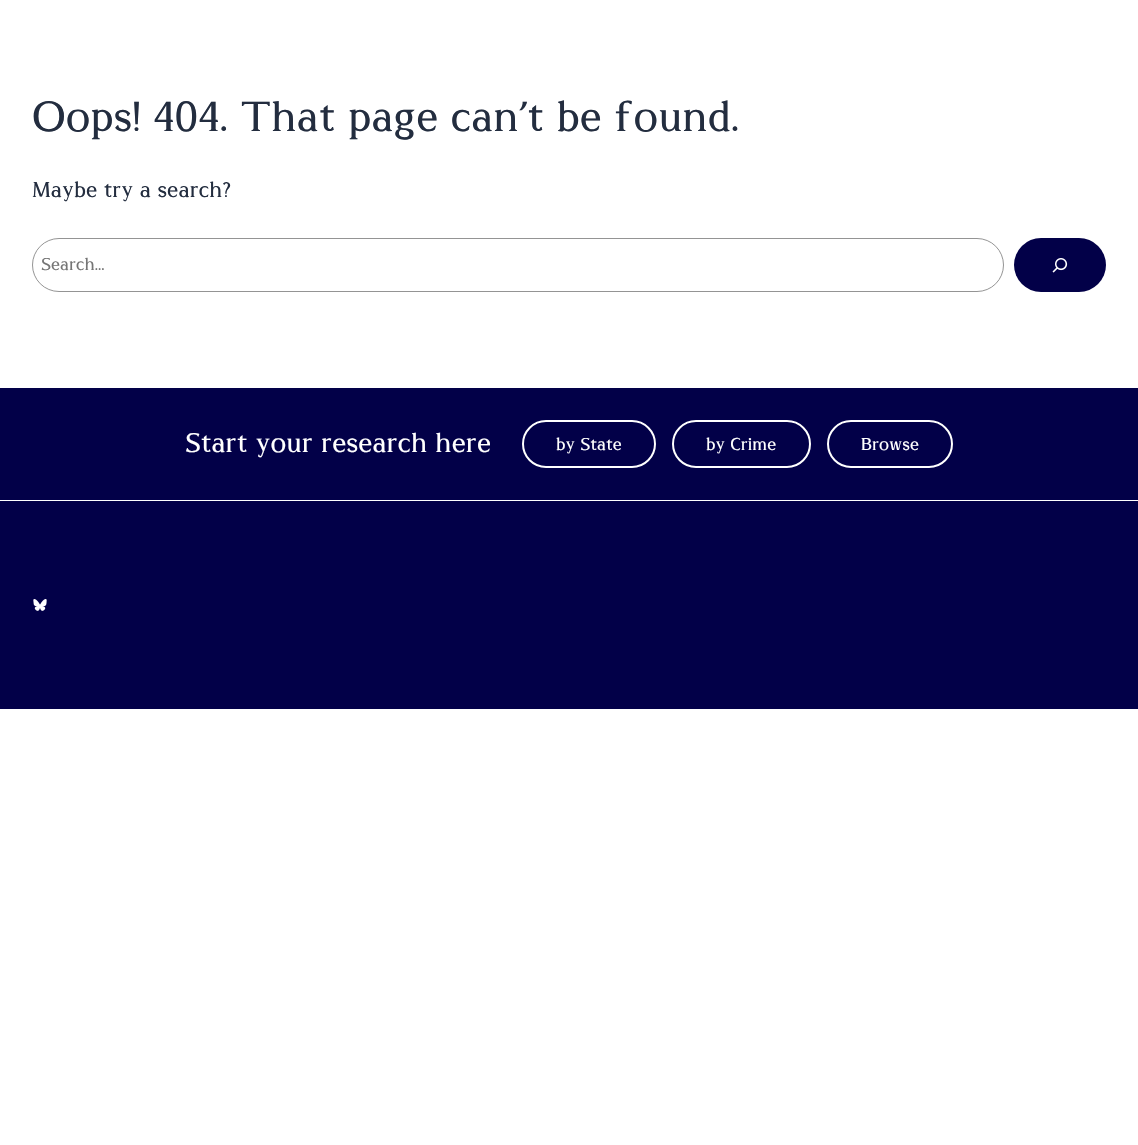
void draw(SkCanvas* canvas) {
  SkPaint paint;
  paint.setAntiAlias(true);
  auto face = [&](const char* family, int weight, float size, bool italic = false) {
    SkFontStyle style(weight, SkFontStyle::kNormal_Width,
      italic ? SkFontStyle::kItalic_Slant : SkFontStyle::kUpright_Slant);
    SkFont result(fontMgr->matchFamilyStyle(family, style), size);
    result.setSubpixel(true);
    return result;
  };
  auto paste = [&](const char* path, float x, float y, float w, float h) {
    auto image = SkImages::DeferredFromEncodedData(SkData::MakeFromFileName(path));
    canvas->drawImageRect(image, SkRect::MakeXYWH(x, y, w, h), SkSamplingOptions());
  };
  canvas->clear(0xffffffff);
  paint.setStroke(true);
  paint.setStrokeWidth(1);
  paint.setColor(0xff949494);
  canvas->drawRoundRect(SkRect::MakeXYWH(32.5f, 238.5f, 971, 53), 26.5f, 26.5f, paint);
  paint.setStroke(false);
  paint.setColor(0xff020048);
  canvas->drawRoundRect(SkRect::MakeXYWH(1014, 238, 92, 54), 27, 27, paint);
  paste("img/1.png", 1052, 258, 16, 15);
  canvas->drawRect(SkRect::MakeXYWH(0, 388, 1138, 112), paint);
  paint.setStroke(true);
  paint.setStrokeWidth(2);
  paint.setColor(0xffffffff);
  canvas->drawRoundRect(SkRect::MakeXYWH(523, 421, 132, 46), 23, 23, paint);
  canvas->drawRoundRect(SkRect::MakeXYWH(673, 421, 137, 46), 23, 23, paint);
  canvas->drawRoundRect(SkRect::MakeXYWH(828, 421, 124, 46), 23, 23, paint);
  paint.setStroke(false);
  paint.setColor(0xff020048);
  canvas->drawRect(SkRect::MakeXYWH(0, 501, 1138, 208), paint);
  paste("img/2.png", 33, 599, 14, 12);
  auto f0 = face("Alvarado", 400, 41.75f);
  paint.setColor(0xff232d3f);
  canvas->drawString("Oops! 404. That page can’t be found.", 32, 131, f0, paint);
  auto f1 = face("Alvarado", 400, 21.4f);
  canvas->drawString("Maybe try a search?", 32, 197, f1, paint);
  auto f2 = face("Alvarado", 400, 17);
  paint.setColor(0xff757575);
  canvas->drawString("Search...", 41, 270, f2, paint);
  auto f3 = face("Alvarado", 400, 26.75f);
  paint.setColor(0xffffffff);
  canvas->drawString("Start your research here", 185, 452, f3, paint);
  {
    const struct { const char* s; float x, y; } items[] = {
      {"by State", 556, 450},
      {"by Crime", 706, 450},
      {"Browse", 861, 450},
    };
    for (auto [s, x, y] : items) {
      canvas->drawString(s, x, y, f2, paint);
    }
  }
}
